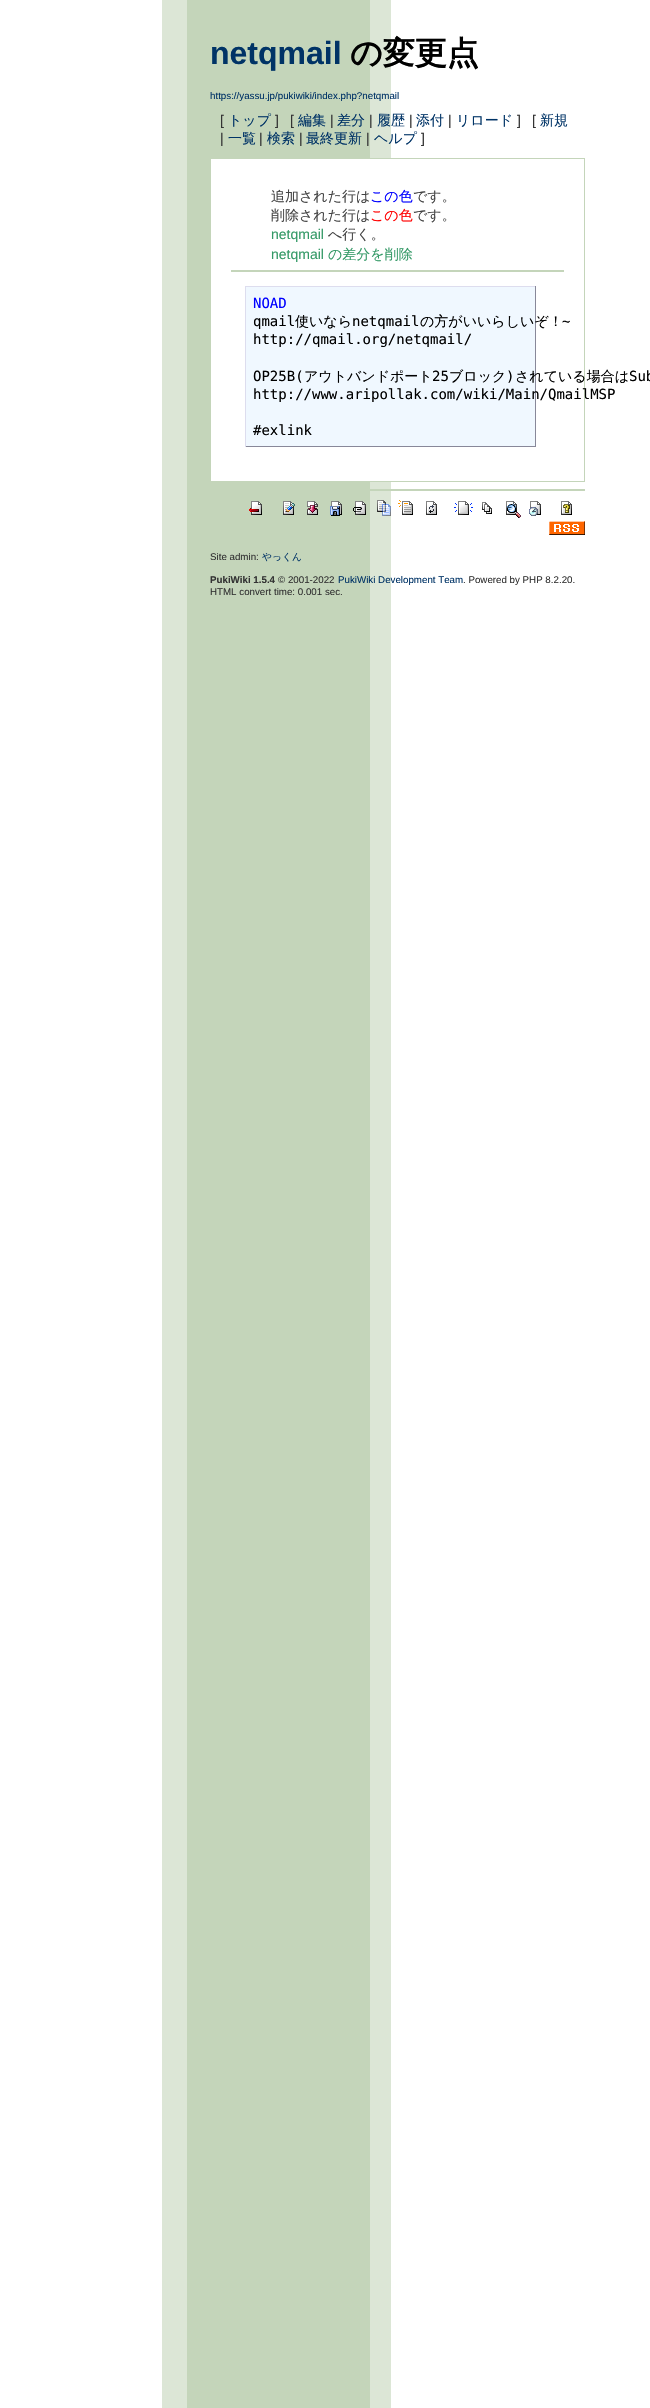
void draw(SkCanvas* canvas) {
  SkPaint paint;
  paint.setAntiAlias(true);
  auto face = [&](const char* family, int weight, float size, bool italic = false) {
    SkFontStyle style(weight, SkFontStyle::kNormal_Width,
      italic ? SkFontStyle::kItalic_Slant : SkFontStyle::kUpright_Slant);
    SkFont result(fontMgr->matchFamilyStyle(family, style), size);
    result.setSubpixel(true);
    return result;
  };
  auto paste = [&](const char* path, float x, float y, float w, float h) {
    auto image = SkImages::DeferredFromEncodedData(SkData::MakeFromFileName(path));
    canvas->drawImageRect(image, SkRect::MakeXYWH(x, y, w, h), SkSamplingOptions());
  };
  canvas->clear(0xffffffff);
  paste("img/1.png", 162, 0, 229, 2408);
  paint.setColor(0xffffffff);
  canvas->drawRect(SkRect::MakeXYWH(211, 159, 180, 322), paint);
  paint.setStroke(true);
  paint.setStrokeWidth(1);
  paint.setColor(0xffc4d5ba);
  canvas->drawRect(SkRect::MakeXYWH(210.5f, 158.5f, 374, 323), paint);
  paint.setStroke(false);
  {
    const struct { float x, y, w, h; SkColor color; } items[] = {
      {231, 270, 333, 2, 0xffc4d5ba},
      {246, 287, 289, 159, 0xfff0f8ff},
      {245, 286, 291, 1, 0xffddddee},
      {535, 286, 1, 161, 0xff888899},
      {245, 446, 291, 1, 0xff888899},
      {245, 286, 1, 161, 0xffddddee},
      {370, 489, 215, 2, 0xffc4d5ba},
    };
    for (auto [x, y, w, h, color] : items) {
      paint.setColor(color);
      canvas->drawRect(SkRect::MakeXYWH(x, y, w, h), paint);
    }
  }
  paste("img/2.png", 249, 501, 13, 14);
  paste("img/3.png", 283, 501, 12, 14);
  paste("img/4.png", 307, 501, 11, 14);
  paste("img/5.png", 330, 501, 12, 15);
  paste("img/6.png", 353, 501, 13, 14);
  paste("img/7.png", 377, 500, 14, 16);
  paste("img/8.png", 398, 500, 15, 15);
  paste("img/9.png", 426, 501, 11, 14);
  paste("img/10.png", 454, 501, 19, 14);
  paste("img/11.png", 482, 502, 10, 12);
  paste("img/12.png", 506, 501, 15, 17);
  paste("img/13.png", 529, 501, 12, 15);
  paste("img/14.png", 561, 501, 11, 14);
  paste("img/15.png", 549, 521, 36, 14);
  auto f0 = face("Liberation Sans", 700, 32);
  paint.setColor(0xff003366);
  canvas->drawString("netqmail", 210, 64, f0, paint);
  auto f1 = face("WenQuanYi Zen Hei", 700, 32);
  paint.setColor(0xff000000);
  canvas->drawString("の変更点", 350, 64, f1, paint);
  auto f2 = face("Liberation Sans", 400, 9.75f);
  paint.setColor(0xff003366);
  canvas->drawString("https://yassu.jp/pukiwiki/index.php?netqmail", 210, 99, f2, paint);
  auto f3 = face("Liberation Sans", 400, 14);
  paint.setColor(0xff333333);
  canvas->drawString("[", 220, 125, f3, paint);
  auto f4 = face("WenQuanYi Zen Hei", 500, 14);
  paint.setColor(0xff003366);
  canvas->drawString("トップ", 228, 125, f4, paint);
  paint.setColor(0xff333333);
  canvas->drawString("]", 275, 125, f3, paint);
  canvas->drawString("[", 290, 125, f3, paint);
  paint.setColor(0xff003366);
  canvas->drawString("編集", 298, 125, f4, paint);
  paint.setColor(0xff333333);
  canvas->drawString("|", 330, 125, f3, paint);
  paint.setColor(0xff003366);
  canvas->drawString("差分", 337, 125, f4, paint);
  paint.setColor(0xff333333);
  canvas->drawString("|", 369, 125, f3, paint);
  paint.setColor(0xff003366);
  canvas->drawString("履歴", 377, 125, f4, paint);
  paint.setColor(0xff333333);
  canvas->drawString("|", 409, 125, f3, paint);
  paint.setColor(0xff003366);
  canvas->drawString("添付", 416, 125, f4, paint);
  paint.setColor(0xff333333);
  canvas->drawString("|", 448, 125, f3, paint);
  paint.setColor(0xff003366);
  canvas->drawString("リロード", 456, 125, f4, paint);
  paint.setColor(0xff333333);
  canvas->drawString("]", 517, 125, f3, paint);
  canvas->drawString("[", 532, 125, f3, paint);
  paint.setColor(0xff003366);
  canvas->drawString("新規", 540, 125, f4, paint);
  paint.setColor(0xff333333);
  canvas->drawString("|", 220, 143, f3, paint);
  paint.setColor(0xff003366);
  canvas->drawString("一覧", 228, 143, f4, paint);
  paint.setColor(0xff333333);
  canvas->drawString("|", 259, 143, f3, paint);
  paint.setColor(0xff003366);
  canvas->drawString("検索", 267, 143, f4, paint);
  paint.setColor(0xff333333);
  canvas->drawString("|", 299, 143, f3, paint);
  paint.setColor(0xff003366);
  canvas->drawString("最終更新", 306, 143, f4, paint);
  paint.setColor(0xff333333);
  canvas->drawString("|", 366, 143, f3, paint);
  paint.setColor(0xff003366);
  canvas->drawString("ヘルプ", 374, 143, f4, paint);
  paint.setColor(0xff333333);
  canvas->drawString("]", 421, 143, f3, paint);
  paint.setColor(0xff444444);
  canvas->drawString("追加された行は", 271, 201, f4, paint);
  paint.setColor(0xff0000ff);
  canvas->drawString("この色", 370, 201, f4, paint);
  paint.setColor(0xff444444);
  canvas->drawString("です。", 413, 201, f4, paint);
  canvas->drawString("削除された行は", 271, 220, f4, paint);
  paint.setColor(0xffff0000);
  canvas->drawString("この色", 370, 220, f4, paint);
  paint.setColor(0xff444444);
  canvas->drawString("です。", 413, 220, f4, paint);
  paint.setColor(0xff339966);
  canvas->drawString("netqmail", 271, 239, f3, paint);
  paint.setColor(0xff444444);
  canvas->drawString("へ行く。", 328, 239, f4, paint);
  paint.setColor(0xff339966);
  canvas->drawString("netqmail", 271, 259, f3, paint);
  canvas->drawString("の差分を削除", 328, 259, f4, paint);
  auto f5 = face("DejaVu Sans Mono", 400, 14);
  paint.setColor(0xff0000ff);
  canvas->drawString("NOAD", 253, 308, f5, paint);
  paint.setColor(0xff000000);
  canvas->drawString("qmail", 253, 326, f5, paint);
  canvas->drawString("使いなら", 295, 326, f4, paint);
  canvas->drawString("netqmail", 352, 326, f5, paint);
  canvas->drawString("の方がいいらしいぞ！", 420, 326, f4, paint);
  {
    const struct { const char* s; float x, y; } items[] = {
      {"~", 562, 326},
      {"http://qmail.org/netqmail/", 253, 344},
      {"OP25B(", 253, 381},
    };
    for (auto [s, x, y] : items) {
      canvas->drawString(s, x, y, f5, paint);
    }
  }
  canvas->drawString("アウトバンドポート", 304, 381, f4, paint);
  canvas->drawString("25", 432, 381, f5, paint);
  canvas->drawString("ブロック", 449, 381, f4, paint);
  canvas->drawString(")", 506, 381, f5, paint);
  canvas->drawString("されている場合は", 515, 381, f4, paint);
  {
    const struct { const char* s; float x, y; } items[] = {
      {"Sub", 629, 381},
      {"http://www.aripollak.com/wiki/Main/QmailMSP", 253, 399},
      {"#exlink", 253, 435},
    };
    for (auto [s, x, y] : items) {
      canvas->drawString(s, x, y, f5, paint);
    }
  }
  paint.setColor(0xff333333);
  canvas->drawString("Site admin:", 210, 560, f2, paint);
  auto f6 = face("WenQuanYi Zen Hei", 500, 9.75f);
  paint.setColor(0xff003366);
  canvas->drawString("やっくん", 262, 560, f6, paint);
  auto f7 = face("Liberation Sans", 700, 9.75f);
  paint.setColor(0xff333333);
  canvas->drawString("PukiWiki 1.5.4", 210, 583, f7, paint);
  canvas->drawString("© 2001-2022", 278, 583, f2, paint);
  paint.setColor(0xff003366);
  canvas->drawString("PukiWiki Development Team", 338, 583, f2, paint);
  paint.setColor(0xff333333);
  canvas->drawString(". Powered by PHP 8.2.20.", 463, 583, f2, paint);
  canvas->drawString("HTML convert time: 0.001 sec.", 210, 595, f2, paint);
}
